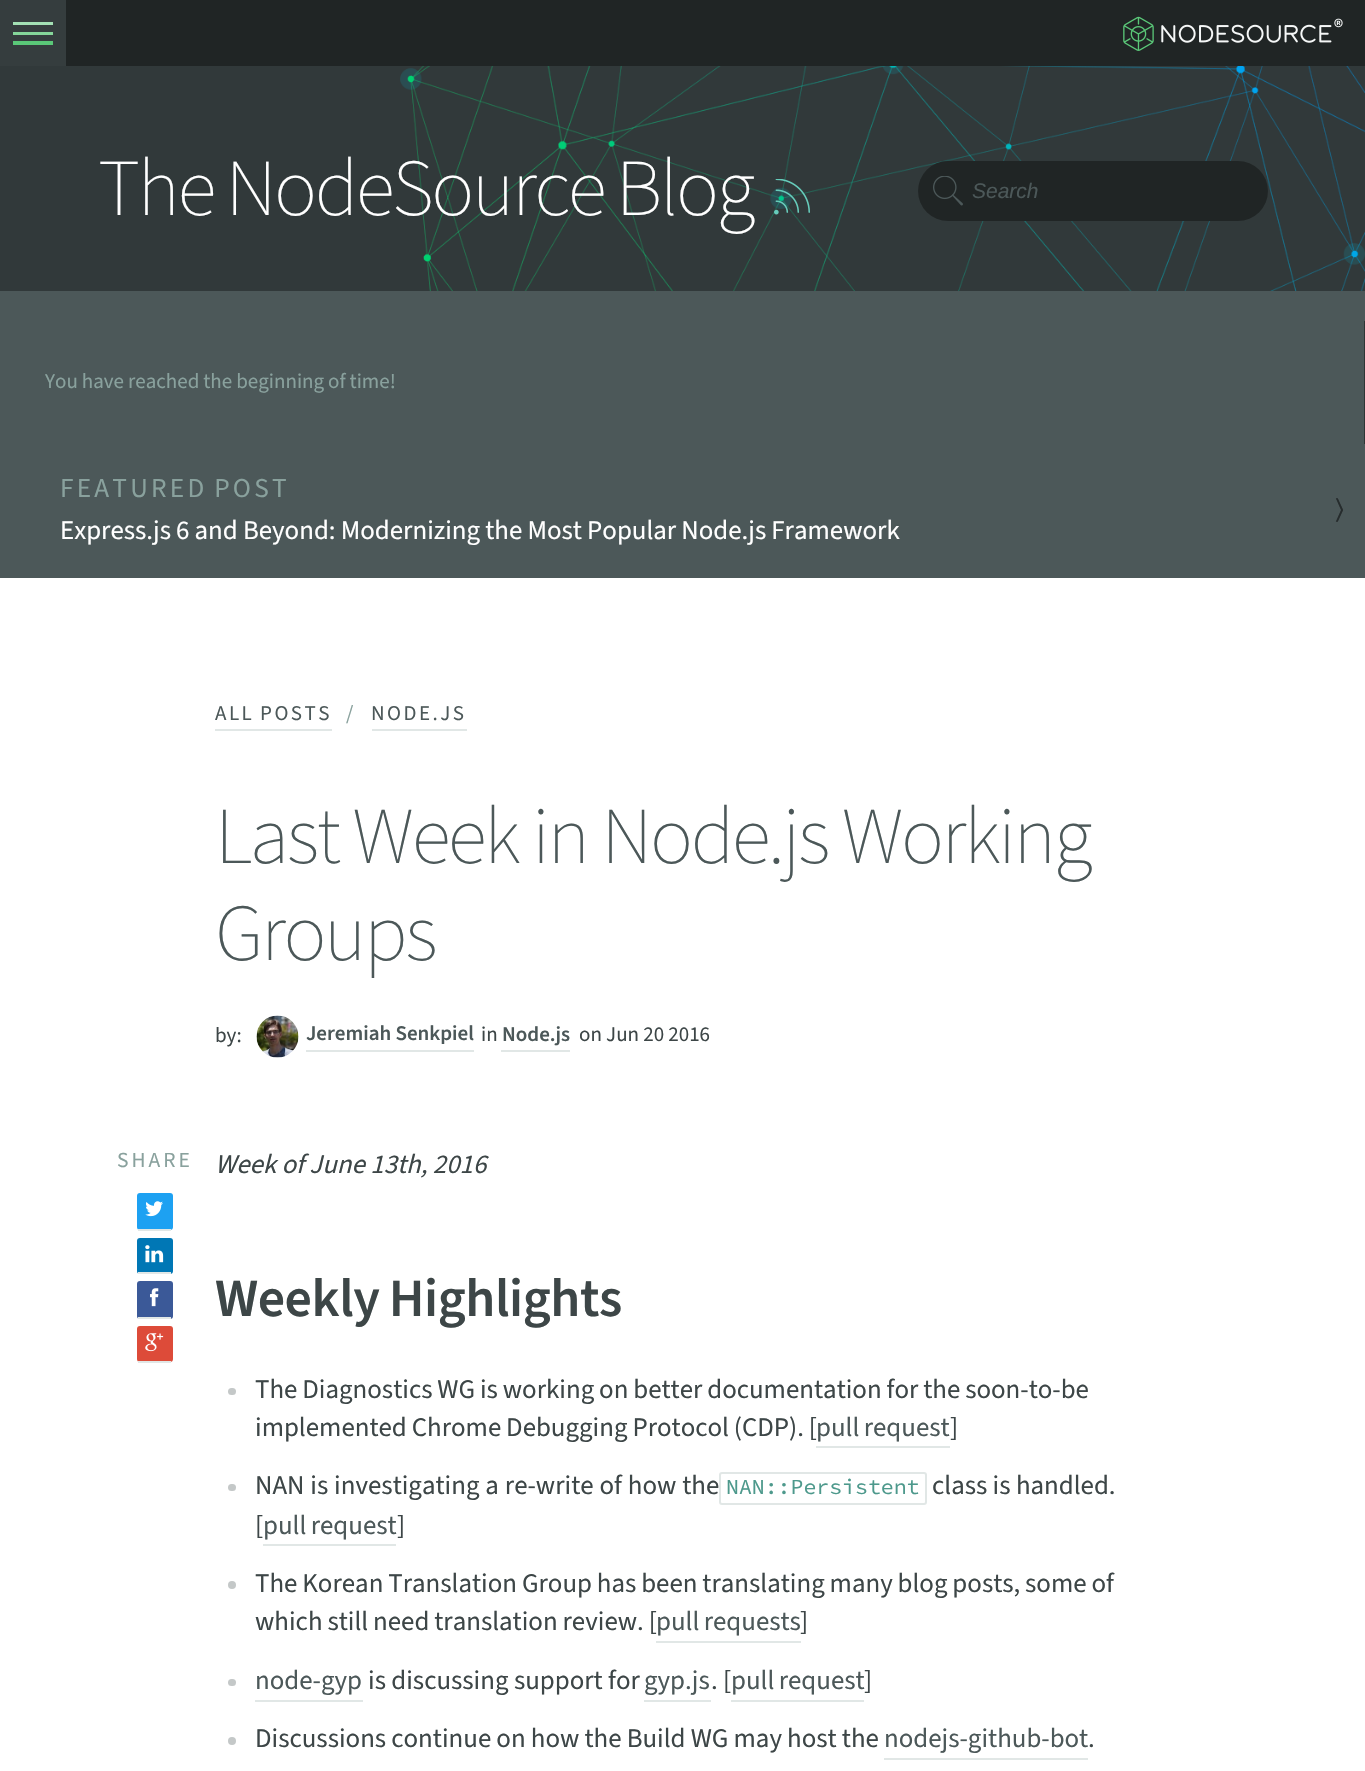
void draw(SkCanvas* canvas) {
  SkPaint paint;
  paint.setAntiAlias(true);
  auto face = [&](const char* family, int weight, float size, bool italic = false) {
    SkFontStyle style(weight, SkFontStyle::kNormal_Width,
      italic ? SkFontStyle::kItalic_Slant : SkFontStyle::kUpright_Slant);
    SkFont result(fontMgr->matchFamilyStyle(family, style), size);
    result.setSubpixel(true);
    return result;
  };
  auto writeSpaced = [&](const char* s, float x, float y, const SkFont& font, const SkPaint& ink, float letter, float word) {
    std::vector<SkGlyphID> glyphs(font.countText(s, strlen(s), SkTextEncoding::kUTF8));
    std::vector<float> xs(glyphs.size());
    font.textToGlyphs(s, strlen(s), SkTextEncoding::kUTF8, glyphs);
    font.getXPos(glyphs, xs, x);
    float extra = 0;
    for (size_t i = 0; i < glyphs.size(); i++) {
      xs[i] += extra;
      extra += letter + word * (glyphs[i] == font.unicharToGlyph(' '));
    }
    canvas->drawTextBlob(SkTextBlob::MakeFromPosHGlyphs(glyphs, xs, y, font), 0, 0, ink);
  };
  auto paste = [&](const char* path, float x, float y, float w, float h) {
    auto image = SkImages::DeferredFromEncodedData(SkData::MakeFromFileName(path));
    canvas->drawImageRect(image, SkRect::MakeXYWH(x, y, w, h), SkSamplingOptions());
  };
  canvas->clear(0xff4c5859);
  {
    const struct { float x, y, w, h; SkColor color; } items[] = {
      {66, 0, 1299, 66, 0xff202525},
      {0, 0, 66, 66, 0xff353d3e},
      {13, 22, 40, 3, 0xffa3e0b4},
      {13, 32, 40, 3, 0xff85d69a},
      {13, 41, 40, 4, 0xff5ac878},
    };
    for (auto [x, y, w, h, color] : items) {
      paint.setColor(color);
      canvas->drawRect(SkRect::MakeXYWH(x, y, w, h), paint);
    }
  }
  paste("img/1.png", 1123, 16, 220, 35);
  paste("img/2.png", 0, 66, 1365, 225);
  paste("img/3.png", 774, 179, 36, 36);
  paint.setColor(0xff202525);
  canvas->drawRoundRect(SkRect::MakeXYWH(918, 161, 350, 60), 30, 30, paint);
  paste("img/4.png", 933, 176, 30, 30);
  {
    const struct { float x, y, w, h; SkColor color; } items[] = {
      {1364, 321, 1, 123, 0xff2e3535},
      {0, 578, 1365, 1193, 0xffffffff},
      {215, 729, 117, 2, 0xffe1e7e6},
      {372, 729, 95, 2, 0xffe1e7e6},
    };
    for (auto [x, y, w, h, color] : items) {
      paint.setColor(color);
      canvas->drawRect(SkRect::MakeXYWH(x, y, w, h), paint);
    }
  }
  paste("img/5.png", 256, 1015, 43, 43);
  canvas->drawRect(SkRect::MakeXYWH(306, 1050, 168, 2), paint);
  canvas->drawRect(SkRect::MakeXYWH(501, 1050, 69, 2), paint);
  paint.setColor(0xff1da1f2);
  canvas->drawRoundRect(SkRect::MakeXYWH(137, 1193, 36, 37), 3, 3, paint);
  paint.setColor(0xffe1e7e6);
  canvas->drawRect(SkRect::MakeXYWH(138, 1229, 33, 2), paint);
  paste("img/6.png", 145, 1201, 18, 16);
  paint.setColor(0xff0077b5);
  canvas->drawRoundRect(SkRect::MakeXYWH(137, 1238, 36, 36), 3, 3, paint);
  paint.setColor(0xffe1e7e6);
  canvas->drawRect(SkRect::MakeXYWH(138, 1272, 33, 2), paint);
  paste("img/7.png", 145, 1245, 19, 18);
  paint.setColor(0xff3b5998);
  canvas->drawRoundRect(SkRect::MakeXYWH(137, 1281, 36, 38), 3, 3, paint);
  paint.setColor(0xffe1e7e6);
  canvas->drawRect(SkRect::MakeXYWH(138, 1317, 33, 2), paint);
  paste("img/8.png", 150, 1288, 9, 19);
  paint.setColor(0xffdd4b39);
  canvas->drawRoundRect(SkRect::MakeXYWH(137, 1326, 36, 36), 3, 3, paint);
  paint.setColor(0xffe1e7e6);
  canvas->drawRect(SkRect::MakeXYWH(138, 1361, 33, 2), paint);
  paste("img/9.png", 145, 1333, 19, 19);
  paint.setColor(0xffc4c8c8);
  canvas->drawRoundRect(SkRect::MakeXYWH(228, 1388, 8, 7), 3.5f, 3.5f, paint);
  paint.setColor(0xffe1e7e6);
  canvas->drawRect(SkRect::MakeXYWH(816, 1446, 134, 2), paint);
  paint.setColor(0xffc4c8c8);
  canvas->drawRoundRect(SkRect::MakeXYWH(228, 1484, 8, 7), 3.5f, 3.5f, paint);
  paint.setStroke(true);
  paint.setStrokeWidth(2);
  paint.setColor(0xffe1e7e6);
  canvas->drawRoundRect(SkRect::MakeXYWH(720, 1473, 206, 31), 2, 2, paint);
  paint.setStroke(false);
  canvas->drawRect(SkRect::MakeXYWH(263, 1544, 133, 2), paint);
  paint.setColor(0xffc4c8c8);
  canvas->drawCircle(232, 1585, 4, paint);
  paint.setColor(0xffe1e7e6);
  canvas->drawRect(SkRect::MakeXYWH(656, 1641, 145, 2), paint);
  paint.setColor(0xffc4c8c8);
  canvas->drawRoundRect(SkRect::MakeXYWH(228, 1679, 8, 7), 3.5f, 3.5f, paint);
  {
    const struct { float x, y, w, h; SkColor color; } items[] = {
      {255, 1700, 108, 2, 0xffe1e7e6},
      {644, 1700, 67, 2, 0xffe1e7e6},
      {731, 1700, 133, 2, 0xffe1e7e6},
    };
    for (auto [x, y, w, h, color] : items) {
      paint.setColor(color);
      canvas->drawRect(SkRect::MakeXYWH(x, y, w, h), paint);
    }
  }
  paint.setColor(0xffc4c8c8);
  canvas->drawCircle(232, 1741, 4, paint);
  paint.setColor(0xffe1e7e6);
  canvas->drawRect(SkRect::MakeXYWH(884, 1758, 204, 2), paint);
  auto f0 = face("Source Sans 3", 200, 80.8f);
  paint.setColor(0xffffffff);
  writeSpaced("The NodeSource Blog", 98, 215, f0, paint, -2.4f, -2);
  auto f1 = face("Liberation Sans", 400, 21, true);
  paint.setColor(0xff4c5859);
  canvas->drawString("Search", 972, 198, f1, paint);
  auto f2 = face("Source Sans 3", 400, 21);
  paint.setColor(0xff89a19d);
  writeSpaced("You have reached the beginning of time!", 45, 388, f2, paint, 0, -0.25f);
  auto f3 = face("Source Sans 3", 400, 27.25f);
  writeSpaced("FEATURED POST", 60, 497, f3, paint, 3.25f, -2);
  auto f4 = face("FreeSans", 400, 26.9f);
  paint.setColor(0xff262c2d);
  canvas->drawString("〉", 1335, 518, f4, paint);
  auto f5 = face("Source Sans 3", 400, 26.9f);
  paint.setColor(0xffffffff);
  writeSpaced("Express.js 6 and Beyond: Modernizing the Most Popular Node.js Framework", 60, 539, f5, paint, 0, -0.25f);
  paint.setColor(0xff4c5859);
  writeSpaced("ALL POSTS", 215, 720, f2, paint, 2.5f, -1);
  paint.setColor(0xff89a19d);
  writeSpaced("/", 346, 720, f2, paint, 2.5f, 0);
  paint.setColor(0xff4c5859);
  writeSpaced("NODE.JS", 371, 720, f2, paint, 2.5f, 0);
  writeSpaced("Last Week in Node.js Working", 215, 863, f0, paint, -2.4f, 0);
  writeSpaced("Groups", 215, 960, f0, paint, -2.4f, 0);
  paint.setColor(0xff3d4647);
  canvas->drawString("by:", 215, 1042, f2, paint);
  auto f6 = face("Source Sans 3", 600, 21);
  paint.setColor(0xff4c5859);
  canvas->drawString("Jeremiah Senkpiel", 306, 1040, f6, paint);
  paint.setColor(0xff3d4647);
  canvas->drawString("in", 481, 1041, f2, paint);
  paint.setColor(0xff4c5859);
  canvas->drawString("Node.js", 502, 1041, f6, paint);
  paint.setColor(0xff3d4647);
  canvas->drawString("on Jun 20 2016", 579, 1041, f2, paint);
  auto f7 = face("Source Sans 3", 400, 21.5f);
  paint.setColor(0xff89a19d);
  writeSpaced("SHARE", 117, 1167, f7, paint, 3, 0);
  auto f8 = face("Source Sans 3", 400, 26.9f, true);
  paint.setColor(0xff3d4647);
  canvas->drawString("Week of June 13th, 2016", 215, 1173, f8, paint);
  auto f9 = face("Source Sans 3", 600, 54);
  writeSpaced("Weekly Highlights", 215, 1316, f9, paint, -0.5f, -1);
  writeSpaced("The Diagnostics WG is working on better documentation for the soon-to-be", 255, 1398, f5, paint, 0, -0.5f);
  writeSpaced("implemented Chrome Debugging Protocol (CDP). [", 255, 1436, f5, paint, 0, -0.5f);
  paint.setColor(0xff4c5859);
  writeSpaced("pull request", 816, 1436, f5, paint, 0, -1);
  paint.setColor(0xff3d4647);
  canvas->drawString("]", 950, 1436, f5, paint);
  writeSpaced("NAN is investigating a re-write of how the", 255, 1494, f5, paint, 0, 0.5f);
  auto f10 = face("Source Code Pro", 400, 21.5f);
  paint.setColor(0xff4d998c);
  canvas->drawString("NAN::Persistent", 726, 1494, f10, paint);
  paint.setColor(0xff3d4647);
  canvas->drawString("class is handled.", 932, 1494, f5, paint);
  canvas->drawString("[", 255, 1534, f5, paint);
  paint.setColor(0xff4c5859);
  writeSpaced("pull request", 263, 1534, f5, paint, 0, -1);
  paint.setColor(0xff3d4647);
  canvas->drawString("]", 397, 1534, f5, paint);
  writeSpaced("The Korean Translation Group has been translating many blog posts, some of", 255, 1592, f5, paint, 0, -0.5f);
  writeSpaced("which still need translation review. [", 255, 1630, f5, paint, 0, -0.5f);
  paint.setColor(0xff4c5859);
  writeSpaced("pull requests", 656, 1630, f5, paint, 0, -1);
  paint.setColor(0xff3d4647);
  canvas->drawString("]", 800, 1630, f5, paint);
  paint.setColor(0xff4c5859);
  canvas->drawString("node-gyp", 255, 1689, f5, paint);
  paint.setColor(0xff3d4647);
  canvas->drawString("is discussing support for", 368, 1689, f5, paint);
  paint.setColor(0xff4c5859);
  canvas->drawString("gyp.js", 644, 1689, f5, paint);
  paint.setColor(0xff3d4647);
  canvas->drawString(". [", 711, 1689, f5, paint);
  paint.setColor(0xff4c5859);
  writeSpaced("pull request", 731, 1689, f5, paint, 0, -1);
  paint.setColor(0xff3d4647);
  canvas->drawString("]", 864, 1689, f5, paint);
  writeSpaced("Discussions continue on how the Build WG may host the", 255, 1747, f5, paint, 0, -0.25f);
  paint.setColor(0xff4c5859);
  canvas->drawString("nodejs-github-bot", 884, 1747, f5, paint);
  paint.setColor(0xff3d4647);
  canvas->drawString(".", 1088, 1747, f5, paint);
}
